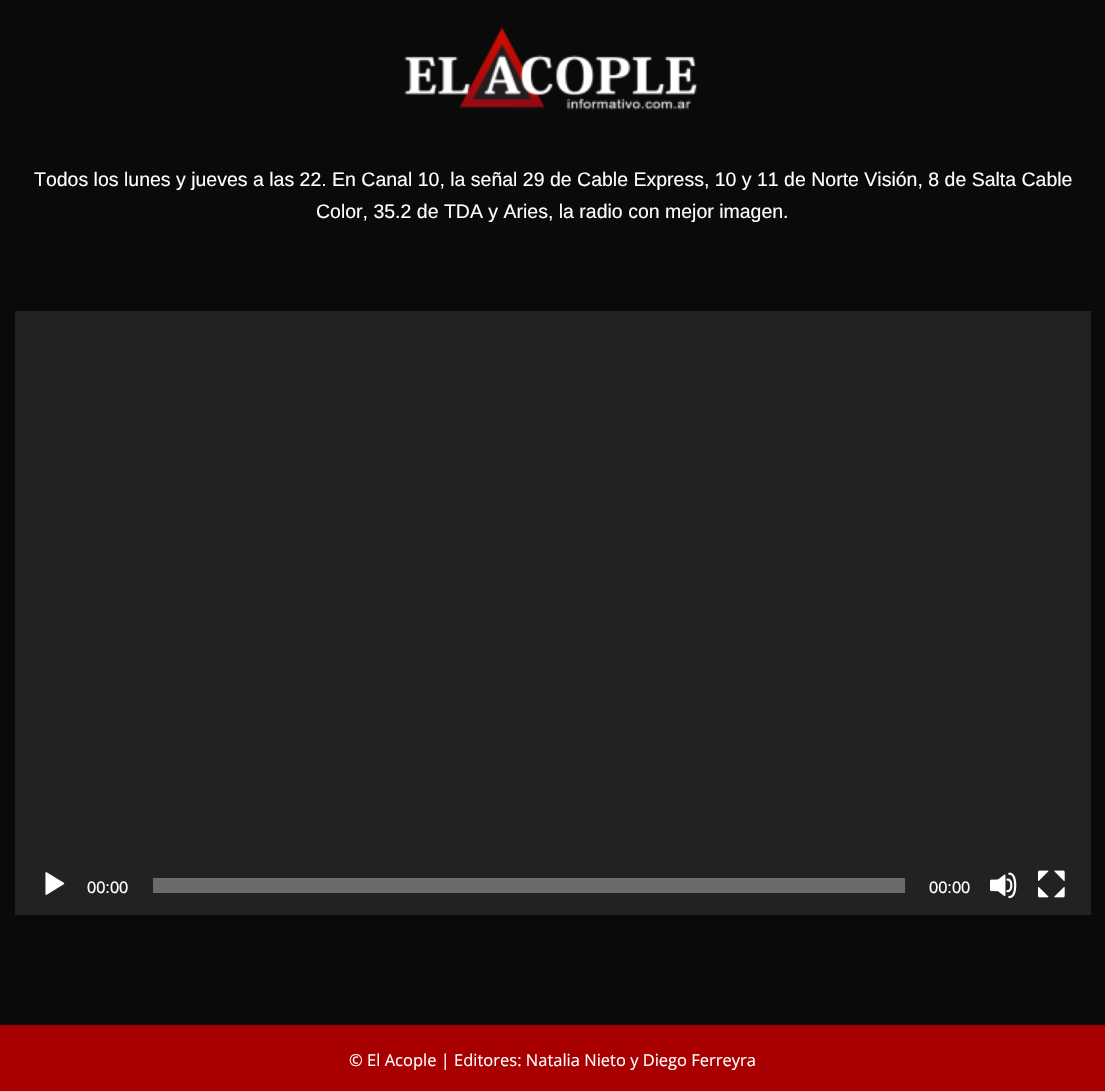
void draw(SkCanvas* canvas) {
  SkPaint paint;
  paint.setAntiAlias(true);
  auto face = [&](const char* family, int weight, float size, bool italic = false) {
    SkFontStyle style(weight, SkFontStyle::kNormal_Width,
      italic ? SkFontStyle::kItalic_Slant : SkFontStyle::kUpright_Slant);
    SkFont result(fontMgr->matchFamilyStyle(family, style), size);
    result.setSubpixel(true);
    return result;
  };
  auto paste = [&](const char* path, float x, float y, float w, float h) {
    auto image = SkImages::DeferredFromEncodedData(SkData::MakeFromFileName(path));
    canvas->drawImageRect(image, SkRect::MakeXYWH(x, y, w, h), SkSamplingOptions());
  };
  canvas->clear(0xff0a0a0a);
  paste("img/1.png", 404, 27, 294, 83);
  paint.setColor(0xff222222);
  canvas->drawRect(SkRect::MakeXYWH(15, 311, 1076, 604), paint);
  paste("img/2.png", 45, 872, 20, 23);
  paint.setColor(0xff6b6b6b);
  canvas->drawRect(SkRect::MakeXYWH(153, 878, 752, 15), paint);
  paste("img/3.png", 990, 872, 27, 27);
  paste("img/4.png", 1038, 870, 27, 28);
  paint.setColor(0xffa80000);
  canvas->drawRect(SkRect::MakeXYWH(0, 1025, 1105, 66), paint);
  auto f0 = face("Liberation Sans", 400, 19.5f);
  paint.setColor(0xffffffff);
  canvas->drawString("Todos los lunes y jueves a las 22. En Canal 10, la señal 29 de Cable Express, 10 y 11 de Norte Visión, 8 de Salta Cable", 34, 186, f0, paint);
  canvas->drawString("Color, 35.2 de TDA y Aries, la radio con mejor imagen.", 316, 218, f0, paint);
  auto f1 = face("Liberation Sans", 400, 16.5f);
  canvas->drawString("00:00", 87, 893, f1, paint);
  canvas->drawString("00:00", 929, 893, f1, paint);
  auto f2 = face("Open Sans", 400, 16.5f);
  canvas->drawString("© El Acople | Editores: Natalia Nieto y Diego Ferreyra", 349, 1066, f2, paint);
}
